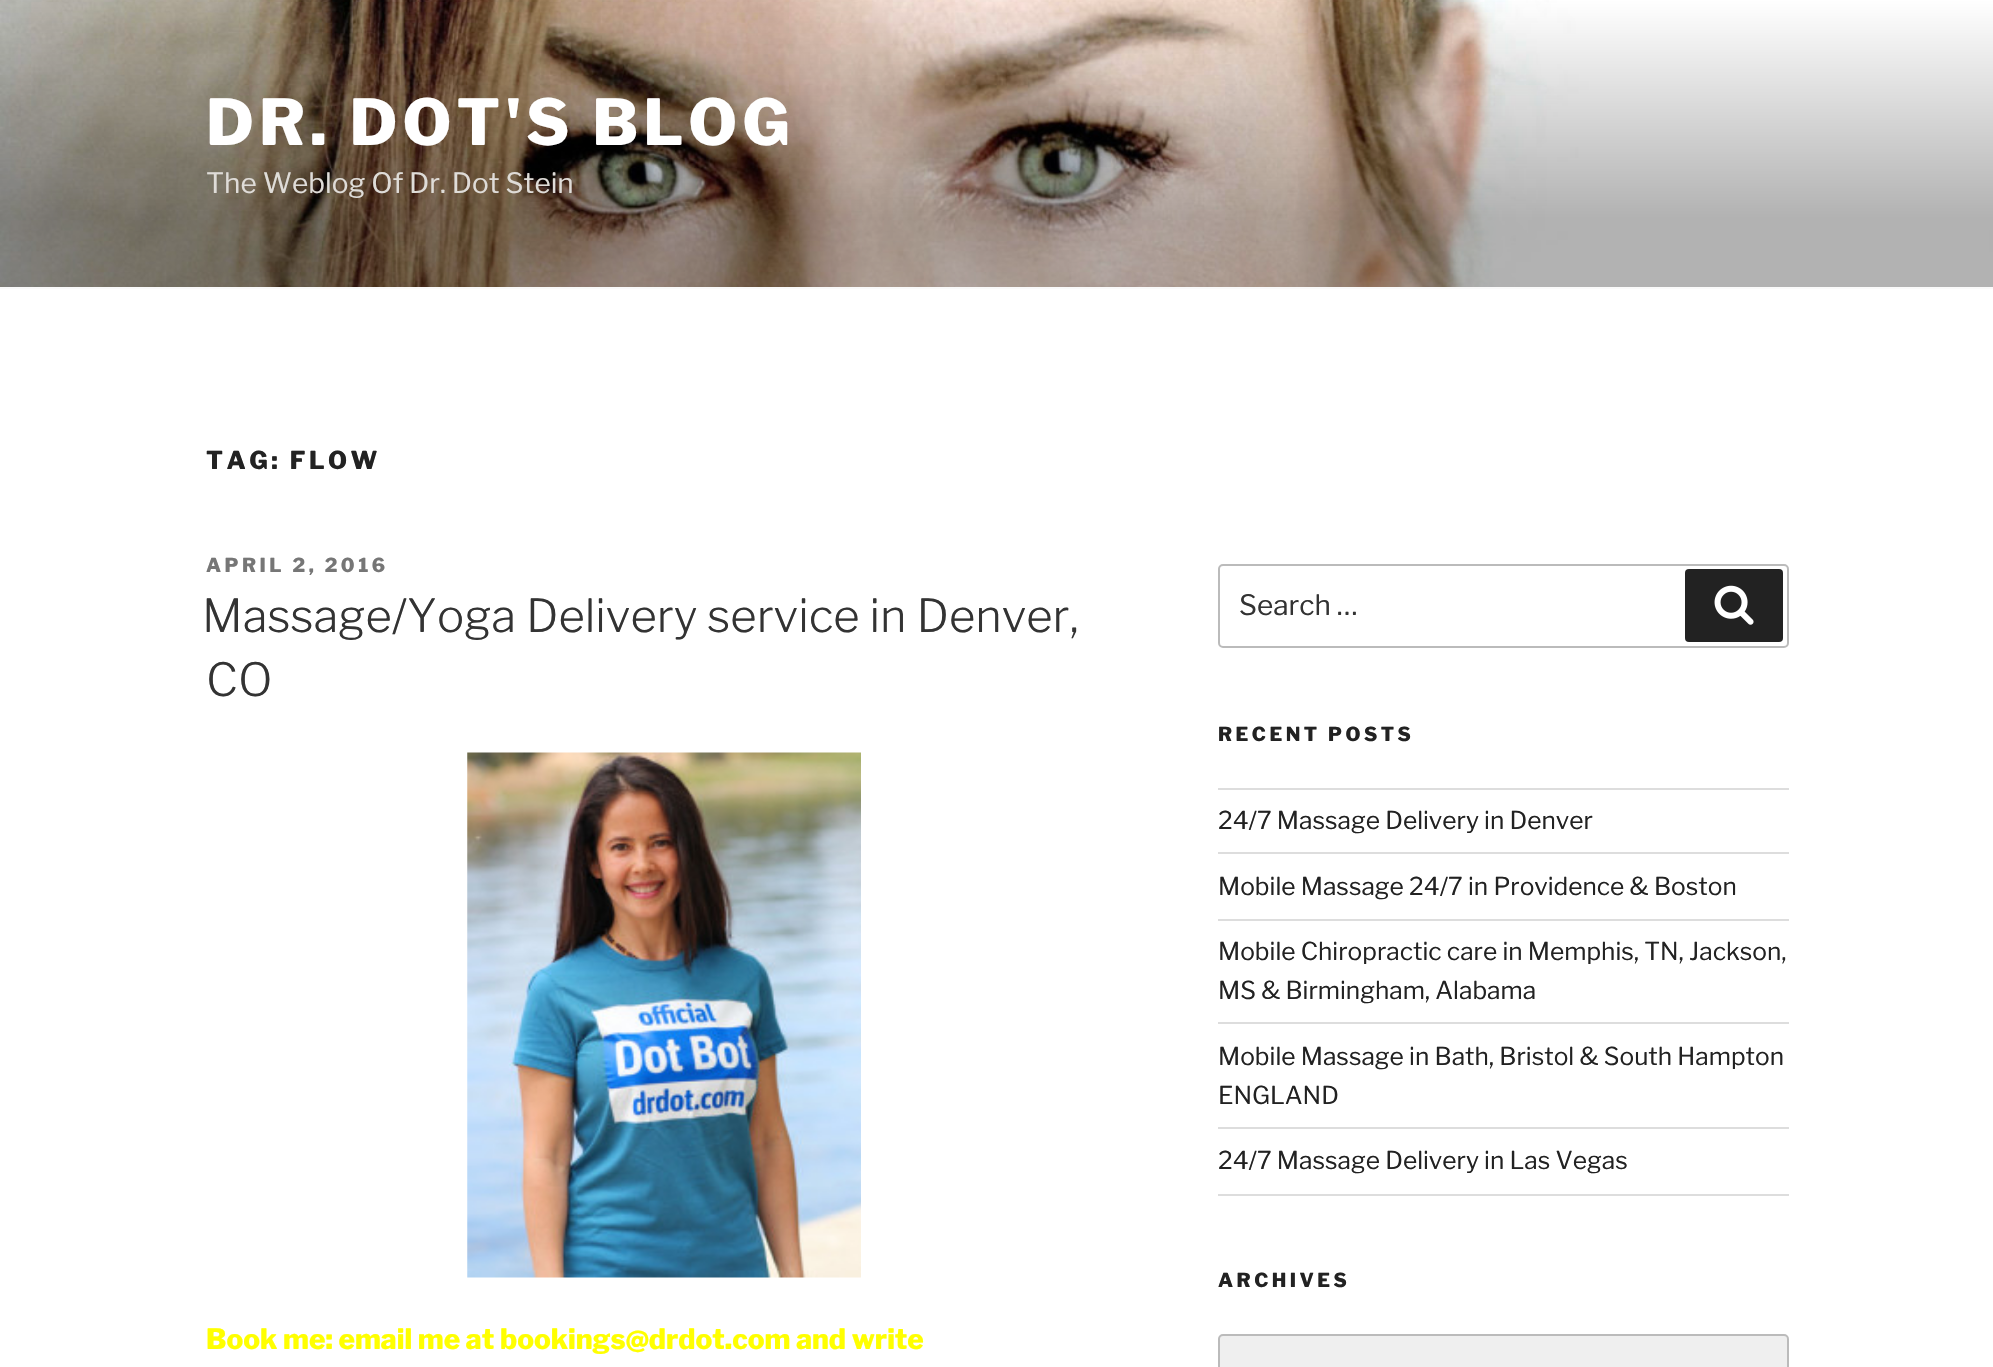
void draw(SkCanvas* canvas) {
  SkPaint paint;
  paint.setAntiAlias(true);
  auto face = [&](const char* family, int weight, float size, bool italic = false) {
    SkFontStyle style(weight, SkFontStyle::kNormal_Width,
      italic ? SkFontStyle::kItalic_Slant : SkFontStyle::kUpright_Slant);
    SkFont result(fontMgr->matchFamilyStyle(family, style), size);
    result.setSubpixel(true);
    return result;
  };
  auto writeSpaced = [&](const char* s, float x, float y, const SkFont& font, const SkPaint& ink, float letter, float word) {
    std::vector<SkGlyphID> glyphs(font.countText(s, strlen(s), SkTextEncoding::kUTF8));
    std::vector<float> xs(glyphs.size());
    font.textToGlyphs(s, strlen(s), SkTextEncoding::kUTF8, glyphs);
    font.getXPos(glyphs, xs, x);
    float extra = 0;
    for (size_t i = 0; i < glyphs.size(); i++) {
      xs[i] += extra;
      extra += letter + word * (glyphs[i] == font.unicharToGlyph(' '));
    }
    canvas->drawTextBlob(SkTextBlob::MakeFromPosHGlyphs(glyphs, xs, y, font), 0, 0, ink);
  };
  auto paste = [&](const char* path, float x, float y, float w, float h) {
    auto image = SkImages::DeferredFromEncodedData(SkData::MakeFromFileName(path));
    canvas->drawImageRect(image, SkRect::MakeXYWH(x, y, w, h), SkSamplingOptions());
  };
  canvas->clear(0xffffffff);
  paint.setColor(0xfffafafa);
  canvas->drawRect(SkRect::MakeXYWH(0, 287, 1993, 2), paint);
  paste("img/1.png", 0, 0, 1993, 287);
  paste("img/2.png", 467, 752, 394, 526);
  paint.setStroke(true);
  paint.setStrokeWidth(2);
  paint.setColor(0xffbbbbbb);
  canvas->drawRoundRect(SkRect::MakeXYWH(1219, 565, 569, 82), 4, 4, paint);
  paint.setStroke(false);
  paint.setColor(0xff222222);
  canvas->drawRoundRect(SkRect::MakeXYWH(1685, 569, 98, 73), 4, 4, paint);
  paste("img/3.png", 1714, 585, 40, 40);
  {
    const struct { float x, y, w, h; SkColor color; } items[] = {
      {1218, 788, 571, 2, 0xffdddddd},
      {1218, 852, 571, 2, 0xffdddddd},
      {1218, 919, 571, 2, 0xffdddddd},
      {1218, 1022, 571, 2, 0xffdddddd},
      {1218, 1127, 571, 2, 0xffdddddd},
      {1218, 1194, 571, 2, 0xffdddddd},
    };
    for (auto [x, y, w, h, color] : items) {
      paint.setColor(color);
      canvas->drawRect(SkRect::MakeXYWH(x, y, w, h), paint);
    }
  }
  paint.setColor(0xffefefef);
  canvas->drawRoundRect(SkRect::MakeXYWH(1219, 1335, 569, 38), 4, 4, paint);
  paint.setStroke(true);
  paint.setColor(0xffbbbbbb);
  canvas->drawRoundRect(SkRect::MakeXYWH(1219, 1335, 569, 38), 4, 4, paint);
  auto f0 = face("Libre Franklin", 100, 63);
  paint.setStroke(false);
  paint.setColor(0xffffffff);
  writeSpaced("DR. DOT'S BLOG", 206, 145, f0, paint, 5, 0);
  auto f1 = face("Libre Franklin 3", 100, 28);
  paint.setColor(0xffdfdcd8);
  canvas->drawString("The Weblog Of", 206, 193, f1, paint);
  canvas->drawString("Dr. Dot Stein", 409, 193, f1, paint);
  auto f2 = face("Libre Franklin", 100, 24.5f);
  paint.setColor(0xff222222);
  writeSpaced("TAG: FLOW", 206, 469, f2, paint, 3.5f, 0);
  auto f3 = face("Libre Franklin", 100, 19.25f);
  paint.setColor(0xff767676);
  writeSpaced("APRIL 2, 2016", 206, 572, f3, paint, 3.5f, 0);
  auto f4 = face("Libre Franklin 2", 100, 45.5f);
  paint.setColor(0xff333333);
  canvas->drawString("Massage/Yoga Delivery service in Denver,", 202, 632, f4, paint);
  canvas->drawString("CO", 206, 696, f4, paint);
  auto f5 = face("Libre Franklin", 100, 28);
  paint.setColor(0xffffff00);
  canvas->drawString("Book me: email me at bookings@drdot.com and write", 206, 1349, f5, paint);
  paint.setColor(0xff333333);
  canvas->drawString("Search …", 1239, 615, f1, paint);
  paint.setColor(0xff222222);
  writeSpaced("RECENT POSTS", 1218, 741, f3, paint, 3.5f, 0);
  auto f6 = face("Libre Franklin 3", 100, 24.5f);
  {
    const struct { const char* s; float x, y; } items[] = {
      {"24/7 Massage Delivery in Denver", 1218, 829},
      {"Mobile Massage 24/7 in Providence & Boston", 1218, 895},
      {"Mobile Chiropractic care in Memphis, TN, Jackson,", 1218, 960},
      {"MS & Birmingham, Alabama", 1218, 999},
      {"Mobile Massage in Bath, Bristol & South Hampton", 1218, 1065},
      {"ENGLAND", 1218, 1104},
      {"24/7 Massage Delivery in Las Vegas", 1218, 1169},
    };
    for (auto [s, x, y] : items) {
      canvas->drawString(s, x, y, f6, paint);
    }
  }
  writeSpaced("ARCHIVES", 1218, 1287, f3, paint, 3.5f, 0);
}
